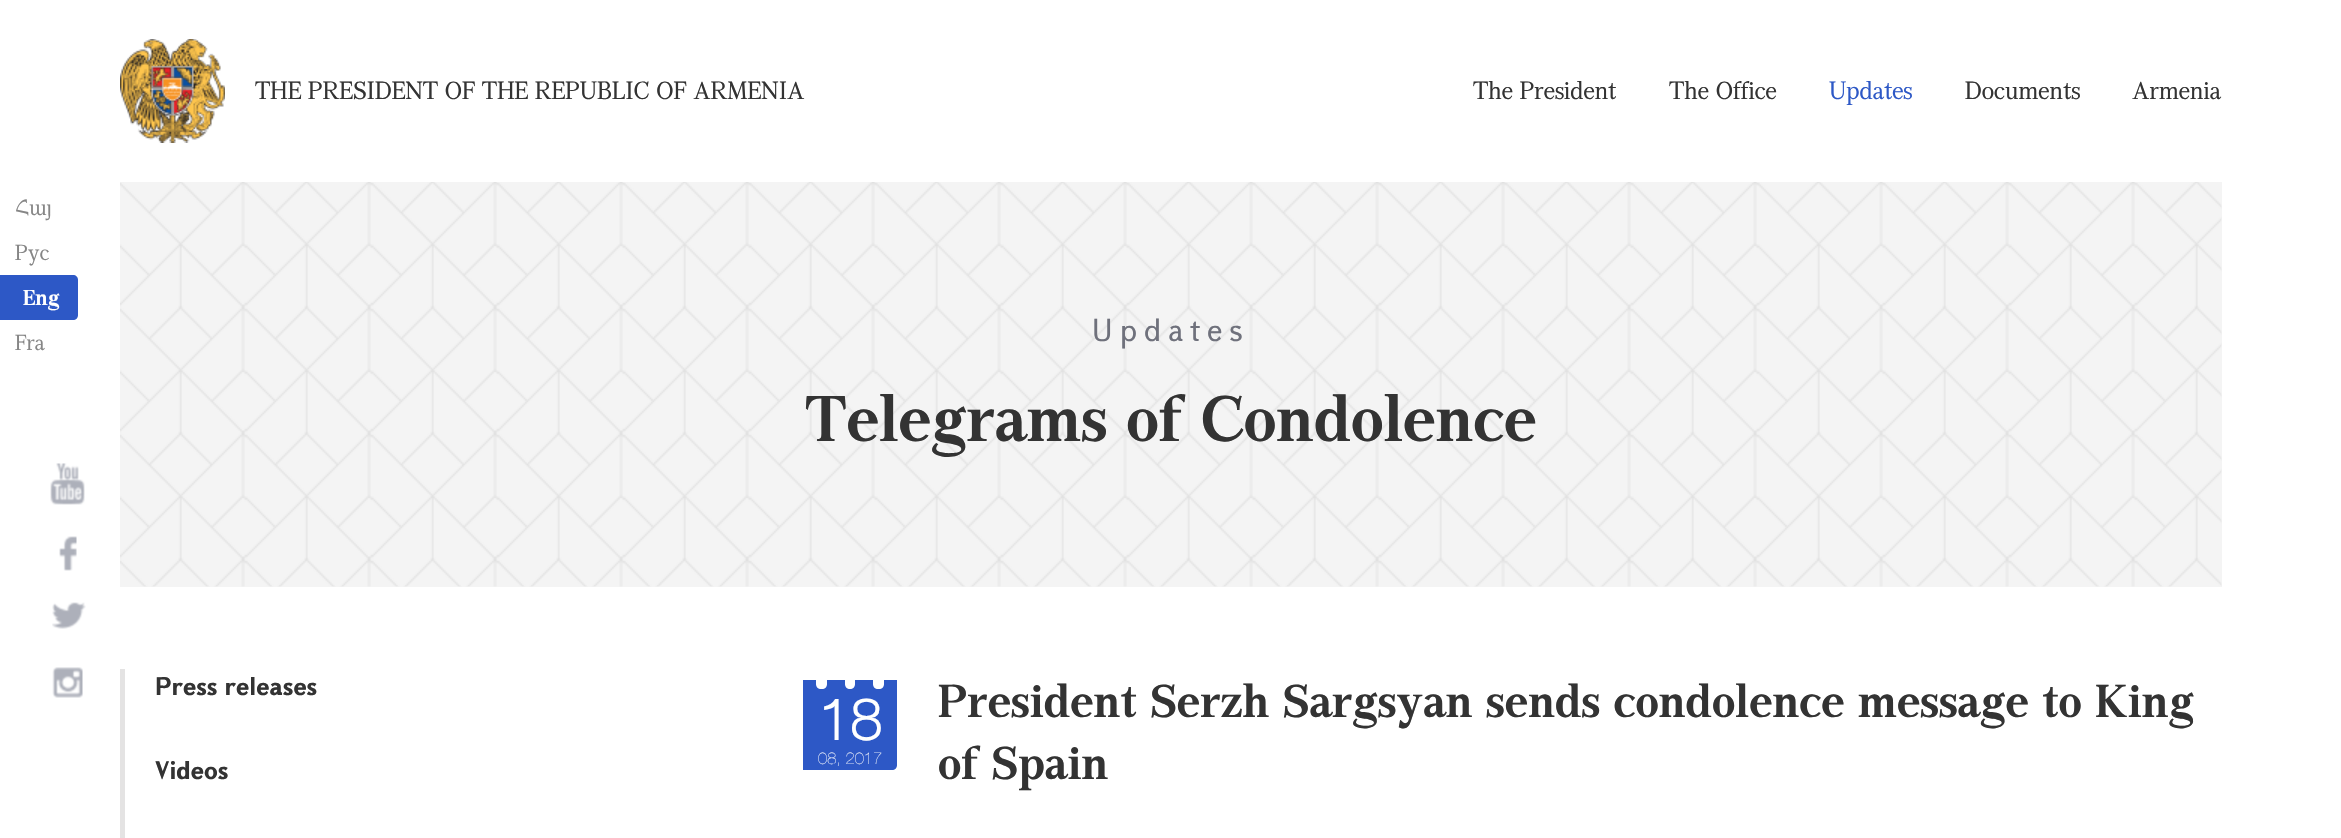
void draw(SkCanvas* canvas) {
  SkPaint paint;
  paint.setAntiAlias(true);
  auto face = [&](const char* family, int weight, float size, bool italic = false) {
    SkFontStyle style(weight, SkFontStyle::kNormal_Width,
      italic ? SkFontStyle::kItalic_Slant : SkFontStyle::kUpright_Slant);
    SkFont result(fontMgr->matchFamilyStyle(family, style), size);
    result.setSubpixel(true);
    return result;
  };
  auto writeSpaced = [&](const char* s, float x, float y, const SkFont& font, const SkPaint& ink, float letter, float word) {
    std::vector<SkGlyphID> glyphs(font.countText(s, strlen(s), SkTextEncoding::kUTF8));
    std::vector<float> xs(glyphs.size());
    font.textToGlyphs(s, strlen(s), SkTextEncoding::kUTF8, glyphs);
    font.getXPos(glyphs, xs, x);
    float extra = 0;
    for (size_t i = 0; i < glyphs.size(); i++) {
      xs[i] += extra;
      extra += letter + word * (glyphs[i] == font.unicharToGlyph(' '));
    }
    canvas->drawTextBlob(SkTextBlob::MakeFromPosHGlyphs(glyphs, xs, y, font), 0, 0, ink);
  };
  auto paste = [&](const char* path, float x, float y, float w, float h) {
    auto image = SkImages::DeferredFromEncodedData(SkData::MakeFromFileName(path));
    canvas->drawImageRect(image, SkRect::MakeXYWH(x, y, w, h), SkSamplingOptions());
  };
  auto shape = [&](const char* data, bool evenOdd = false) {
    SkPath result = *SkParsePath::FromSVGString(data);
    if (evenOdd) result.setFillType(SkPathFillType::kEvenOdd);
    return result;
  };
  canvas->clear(0xffffffff);
  paste("img/1.png", 120, 39, 105, 104);
  paint.setColor(0xff2d58c6);
  canvas->drawPath(shape("M0 275H73C76 275 78 277 78 280V315C78 318 76 320 73 320H0Z"), paint);
  paste("img/2.png", 50, 463, 35, 42);
  paste("img/3.png", 59, 536, 18, 35);
  paste("img/4.png", 52, 602, 34, 27);
  paste("img/5.png", 52, 667, 31, 31);
  paint.setColor(0xfff5f5f5);
  canvas->drawRect(SkRect::MakeXYWH(120, 182, 2102, 405), paint);
  paste("img/6.png", 120, 182, 2102, 405);
  paint.setColor(0xffe4e3e3);
  canvas->drawRect(SkRect::MakeXYWH(120, 669, 5, 169), paint);
  paint.setColor(0xff2d58c6);
  canvas->drawPath(shape("M803 680H897V765C897 768 895 770 892 770H803Z"), paint);
  paint.setColor(0xffffffff);
  canvas->drawPath(shape("M816 680H827V684C827 687 825 689 822 689H821C818 689 816 687 816 684Z"), paint);
  canvas->drawPath(shape("M845 680H855V684C855 687 853 689 850 689C847 689 845 687 845 684Z"), paint);
  canvas->drawPath(shape("M873 680H884V684C884 687 882 689 879 689H878C875 689 873 687 873 684Z"), paint);
  auto f0 = face("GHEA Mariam", 400, 24);
  paint.setColor(0xff333333);
  {
    const struct { const char* s; float x, y; } items[] = {
      {"THE PRESIDENT OF THE REPUBLIC OF ARMENIA", 255, 99},
      {"The President", 1473, 99},
      {"The Office", 1669, 99},
    };
    for (auto [s, x, y] : items) {
      canvas->drawString(s, x, y, f0, paint);
    }
  }
  paint.setColor(0xff2d58c6);
  canvas->drawString("Updates", 1829, 99, f0, paint);
  paint.setColor(0xff333333);
  canvas->drawString("Documents", 1965, 99, f0, paint);
  canvas->drawString("Armenia", 2132, 99, f0, paint);
  auto f1 = face("GHEA Mariam", 400, 21);
  paint.setColor(0xff868686);
  canvas->drawString("Հայ", 15, 215, f1, paint);
  canvas->drawString("Рус", 15, 260, f1, paint);
  auto f2 = face("GHEA Mariam", 700, 21);
  paint.setColor(0xffffffff);
  canvas->drawString("Eng", 23, 305, f2, paint);
  paint.setColor(0xff868686);
  canvas->drawString("Fra", 15, 350, f1, paint);
  auto f3 = face("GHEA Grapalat", 400, 30);
  paint.setColor(0xff6f717c);
  writeSpaced("Updates", 1092, 341, f3, paint, 7.5f, 0);
  auto f4 = face("GHEA Mariam", 700, 63);
  paint.setColor(0xff333333);
  canvas->drawString("Telegrams of Condolence", 805, 441, f4, paint);
  auto f5 = face("GHEA Grapalat", 700, 24);
  canvas->drawString("Press releases", 155, 695, f5, paint);
  canvas->drawString("Videos", 155, 779, f5, paint);
  auto f6 = face("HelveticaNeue", 700, 57);
  paint.setColor(0xffffffff);
  canvas->drawString("18", 818, 740, f6, paint);
  auto f7 = face("HelveticaNeue", 400, 16.5f);
  canvas->drawString("08, 2017", 818, 764, f7, paint);
  auto f8 = face("GHEA Mariam", 700, 45);
  paint.setColor(0xff333333);
  canvas->drawString("President Serzh Sargsyan sends condolence message to King", 938, 717, f8, paint);
  canvas->drawString("of Spain", 938, 779, f8, paint);
}
